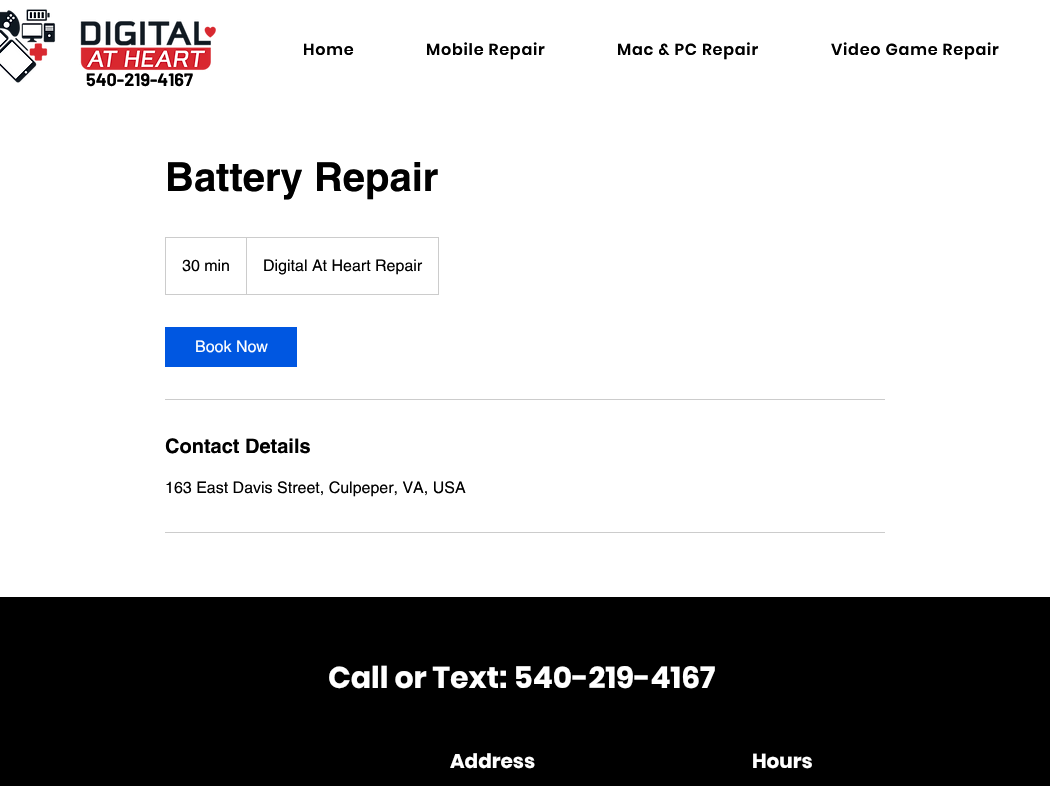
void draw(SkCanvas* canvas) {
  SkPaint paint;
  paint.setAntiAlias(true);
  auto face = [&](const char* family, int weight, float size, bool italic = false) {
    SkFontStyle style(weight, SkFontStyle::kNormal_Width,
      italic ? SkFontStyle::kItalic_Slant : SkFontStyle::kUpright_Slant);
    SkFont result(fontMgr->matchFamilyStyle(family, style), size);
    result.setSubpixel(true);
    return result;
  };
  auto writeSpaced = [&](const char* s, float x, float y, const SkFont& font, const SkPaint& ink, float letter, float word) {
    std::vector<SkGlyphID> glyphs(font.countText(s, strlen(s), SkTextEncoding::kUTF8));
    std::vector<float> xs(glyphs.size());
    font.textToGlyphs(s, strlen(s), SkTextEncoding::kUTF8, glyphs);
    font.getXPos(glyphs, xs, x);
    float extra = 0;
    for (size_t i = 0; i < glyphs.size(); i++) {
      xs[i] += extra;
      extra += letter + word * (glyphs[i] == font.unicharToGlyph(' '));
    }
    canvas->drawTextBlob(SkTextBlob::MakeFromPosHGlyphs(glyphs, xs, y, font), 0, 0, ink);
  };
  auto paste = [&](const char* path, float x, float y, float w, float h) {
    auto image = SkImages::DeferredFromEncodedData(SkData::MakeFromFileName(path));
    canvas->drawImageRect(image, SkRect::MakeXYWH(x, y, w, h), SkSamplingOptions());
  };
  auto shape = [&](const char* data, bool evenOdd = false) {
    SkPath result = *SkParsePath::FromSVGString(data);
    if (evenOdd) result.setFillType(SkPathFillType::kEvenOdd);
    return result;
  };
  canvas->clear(0xffffffff);
  paste("img/1.png", 0, 9, 216, 74);
  paint.setStroke(true);
  paint.setStrokeWidth(1);
  paint.setColor(0xffcccccc);
  canvas->drawRect(SkRect::MakeXYWH(165.5f, 237.5f, 273, 57), paint);
  paint.setStroke(false);
  canvas->drawPath(shape("M246 294V237L247 238V294Z"), paint);
  {
    const struct { float x, y, w, h; SkColor color; } items[] = {
      {165, 327, 132, 40, 0xff0057e1},
      {165, 399, 720, 1, 0xffcccccc},
      {165, 532, 720, 1, 0xffcccccc},
      {0, 597, 1050, 189, 0xff000000},
    };
    for (auto [x, y, w, h, color] : items) {
      paint.setColor(color);
      canvas->drawRect(SkRect::MakeXYWH(x, y, w, h), paint);
    }
  }
  auto f0 = face("Poppins", 600, 16);
  {
    const struct { const char* s; float x, y; } items[] = {
      {"Home", 303, 55},
      {"Mobile Repair", 426, 55},
      {"Mac & PC Repair", 617, 55},
      {"Video Game Repair", 831, 55},
    };
    for (auto [s, x, y] : items) {
      writeSpaced(s, x, y, f0, paint, 0.75f, 0);
    }
  }
  auto f1 = face("Barlow", 700, 18);
  canvas->drawString("540-219-4167", 86, 86, f1, paint);
  auto f2 = face("helvetica", 700, 40);
  canvas->drawString("Battery Repair", 165, 191, f2, paint);
  auto f3 = face("helvetica", 400, 16);
  canvas->drawString("30 min", 182, 271, f3, paint);
  canvas->drawString("Digital At Heart Repair", 263, 271, f3, paint);
  paint.setColor(0xffffffff);
  canvas->drawString("Book Now", 195, 352, f3, paint);
  auto f4 = face("helvetica", 700, 20);
  paint.setColor(0xff000000);
  canvas->drawString("Contact Details", 165, 453, f4, paint);
  canvas->drawString("163 East Davis Street, Culpeper, VA, USA", 165, 493, f3, paint);
  auto f5 = face("Poppins", 700, 30);
  paint.setColor(0xffffffff);
  canvas->drawString("Call or Text: 540-219-4167", 328, 688, f5, paint);
  auto f6 = face("Poppins", 700, 20);
  canvas->drawString("Address", 450, 768, f6, paint);
  canvas->drawString("Hours", 752, 768, f6, paint);
}
